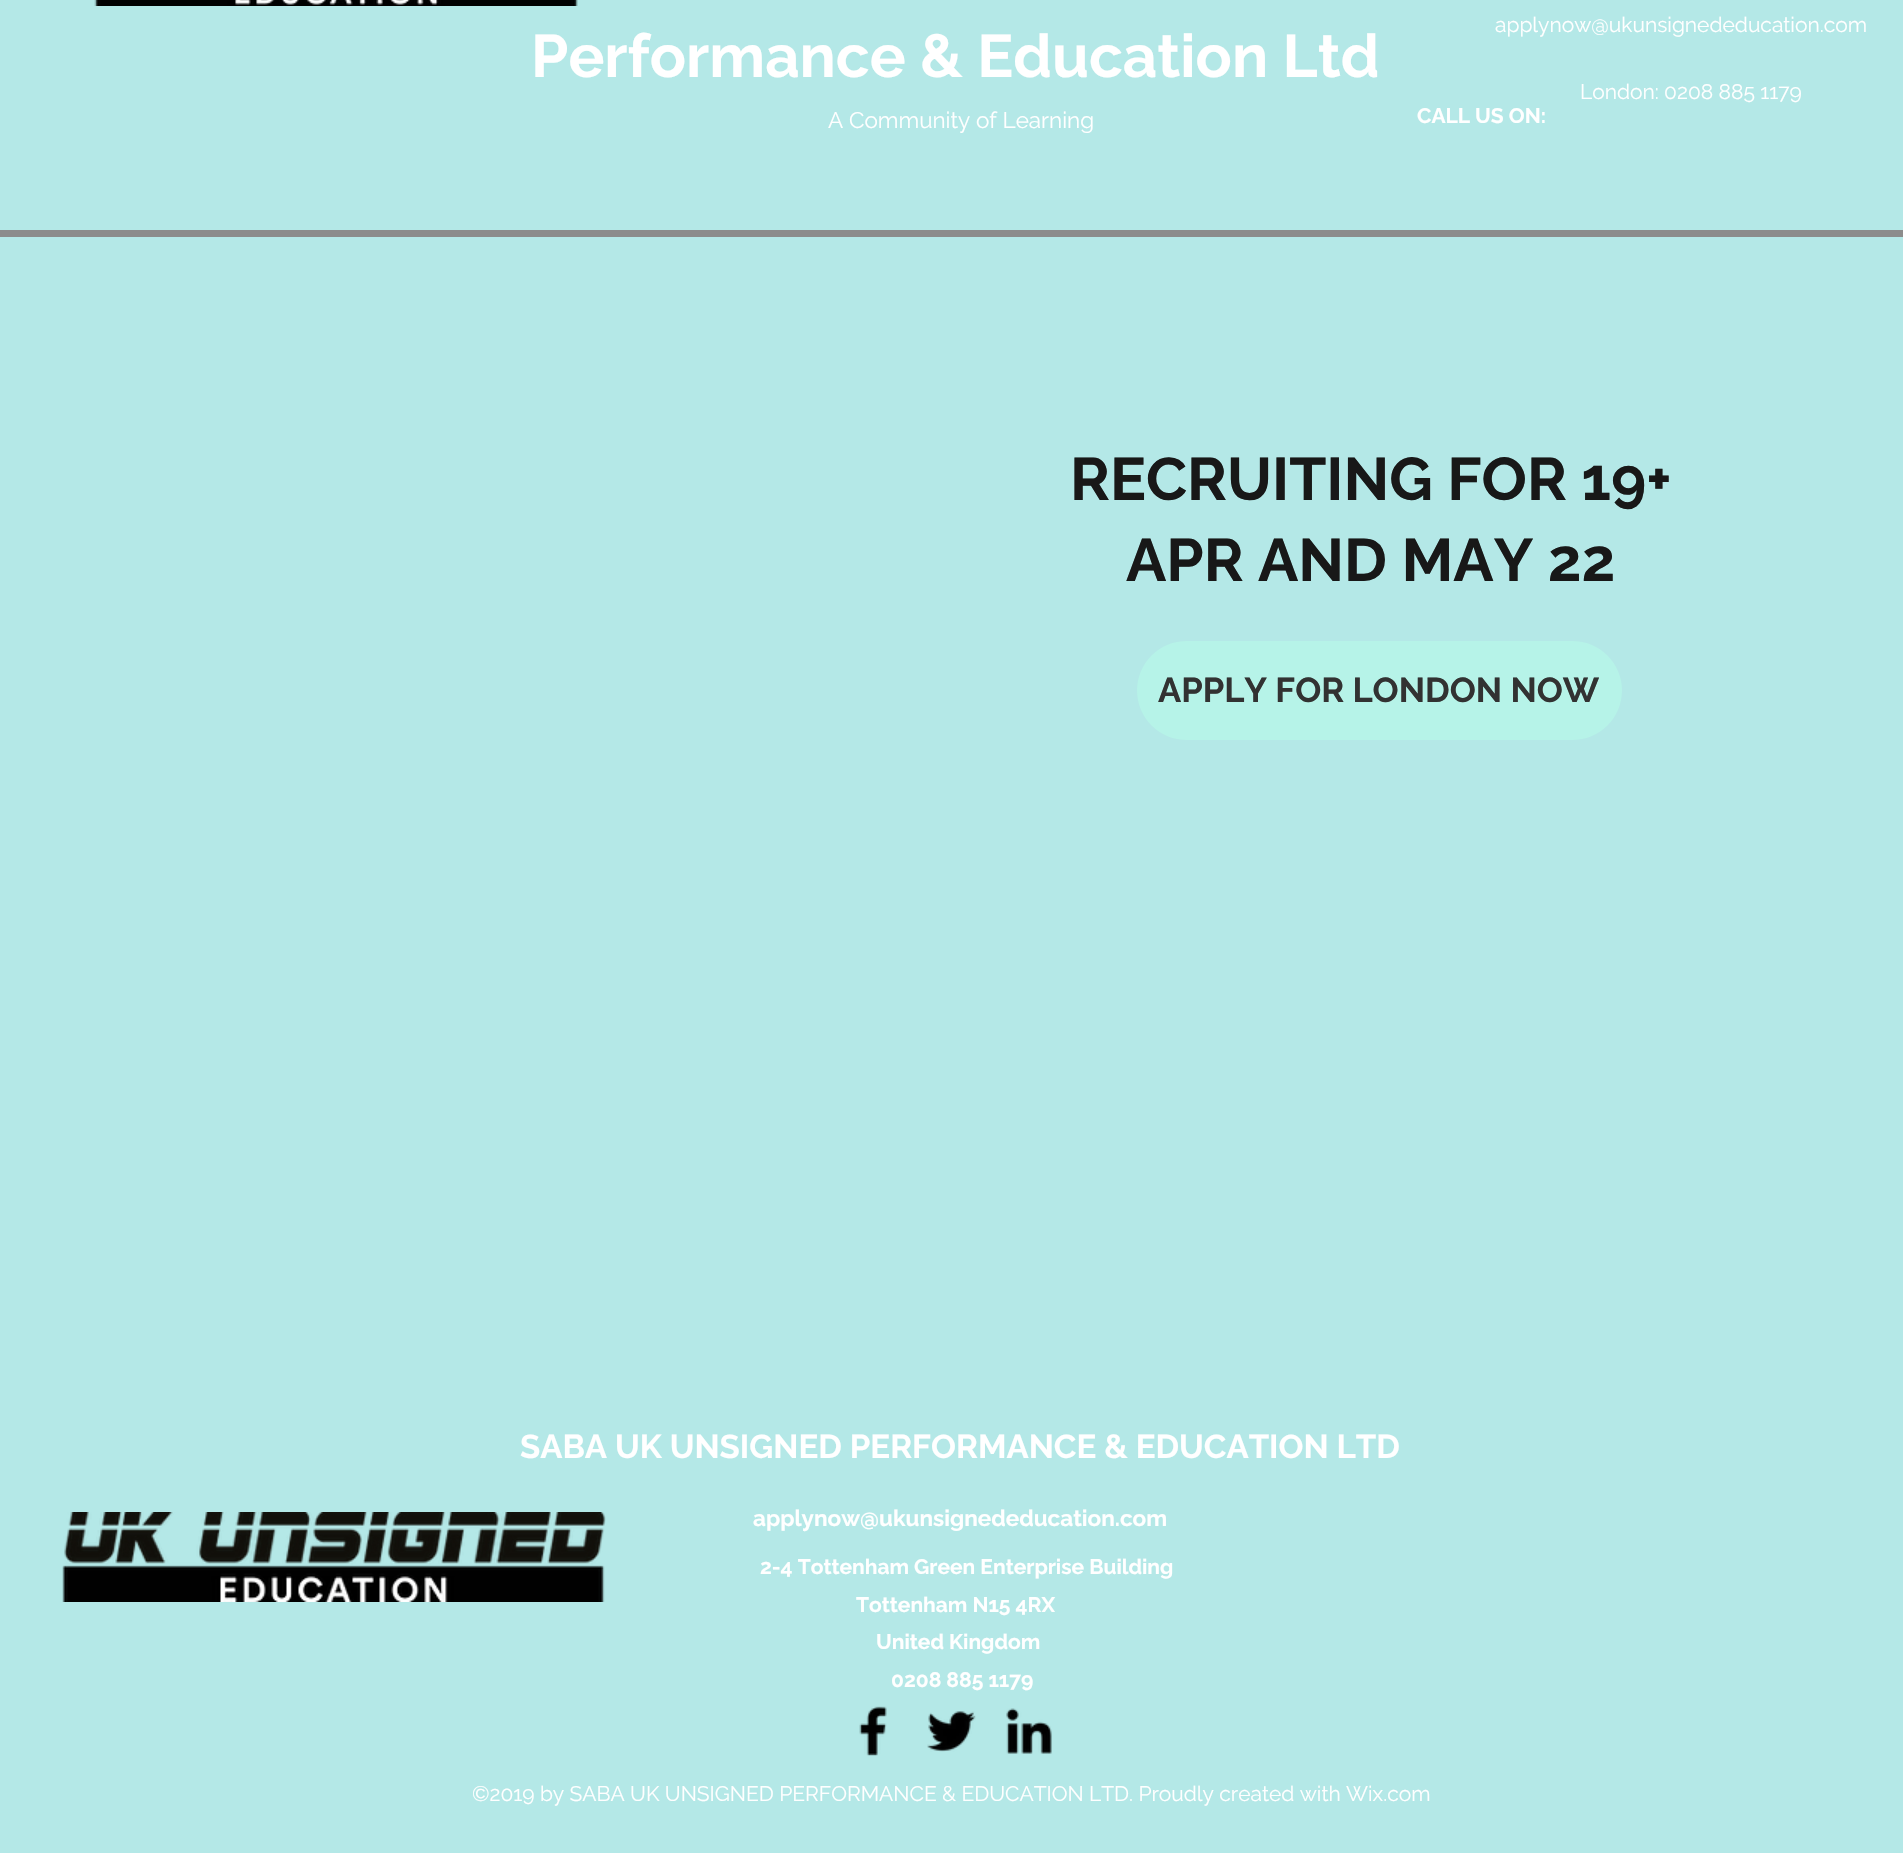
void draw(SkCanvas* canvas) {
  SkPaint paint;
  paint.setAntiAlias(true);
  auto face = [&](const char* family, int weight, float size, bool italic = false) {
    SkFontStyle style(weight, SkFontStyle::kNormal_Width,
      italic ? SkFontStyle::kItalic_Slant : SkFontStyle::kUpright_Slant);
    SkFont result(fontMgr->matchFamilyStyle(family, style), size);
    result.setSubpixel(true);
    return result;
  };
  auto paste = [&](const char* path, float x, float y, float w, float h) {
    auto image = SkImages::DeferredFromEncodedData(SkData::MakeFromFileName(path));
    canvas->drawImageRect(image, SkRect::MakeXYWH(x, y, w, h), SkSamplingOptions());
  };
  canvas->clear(0xffb4e8e7);
  paste("img/1.png", 94, 0, 484, 6);
  paint.setColor(0xff8c8c8c);
  canvas->drawRect(SkRect::MakeXYWH(0, 230, 1903, 7), paint);
  paint.setColor(0xffb6f3e8);
  canvas->drawRoundRect(SkRect::MakeXYWH(1137, 641, 485, 99), 49.5f, 49.5f, paint);
  paste("img/2.png", 62, 1512, 544, 90);
  paste("img/3.png", 859, 1706, 28, 50);
  paste("img/4.png", 927, 1711, 49, 41);
  paste("img/5.png", 1006, 1708, 46, 46);
  auto f0 = face("Raleway", 400, 21);
  paint.setColor(0xffffffff);
  canvas->drawString("applynow@ukunsignededucation.com", 1495, 32, f0, paint);
  auto f1 = face("Raleway", 700, 60);
  canvas->drawString("Performance & Education Ltd", 531, 77, f1, paint);
  auto f2 = face("Raleway", 400, 22.5f);
  canvas->drawString("A Community of Learning", 828, 128, f2, paint);
  canvas->drawString("London: 0208 885 1179", 1580, 99, f0, paint);
  auto f3 = face("Raleway", 700, 21);
  canvas->drawString("CALL US ON:", 1417, 123, f3, paint);
  paint.setColor(0xff181818);
  canvas->drawString("RECRUITING FOR 19+", 1070, 500, f1, paint);
  canvas->drawString("APR AND MAY 22", 1126, 581, f1, paint);
  auto f4 = face("Raleway", 700, 34.5f);
  paint.setColor(0xff323232);
  canvas->drawString("APPLY FOR LONDON NOW", 1158, 702, f4, paint);
  auto f5 = face("Raleway", 700, 33);
  paint.setColor(0xffffffff);
  canvas->drawString("SABA UK UNSIGNED PERFORMANCE & EDUCATION LTD", 520, 1458, f5, paint);
  auto f6 = face("Raleway", 700, 22.5f);
  canvas->drawString("applynow@ukunsignededucation.com", 753, 1526, f6, paint);
  {
    const struct { const char* s; float x, y; } items[] = {
      {"2-4 Tottenham Green Enterprise Building", 760, 1574},
      {"Tottenham N15 4RX", 856, 1612},
      {"United Kingdom", 876, 1649},
      {"0208 885 1179", 891, 1687},
    };
    for (auto [s, x, y] : items) {
      canvas->drawString(s, x, y, f3, paint);
    }
  }
  canvas->drawString("©2019 by SABA UK UNSIGNED PERFORMANCE & EDUCATION LTD. Proudly created with Wix.com", 472, 1801, f0, paint);
}
